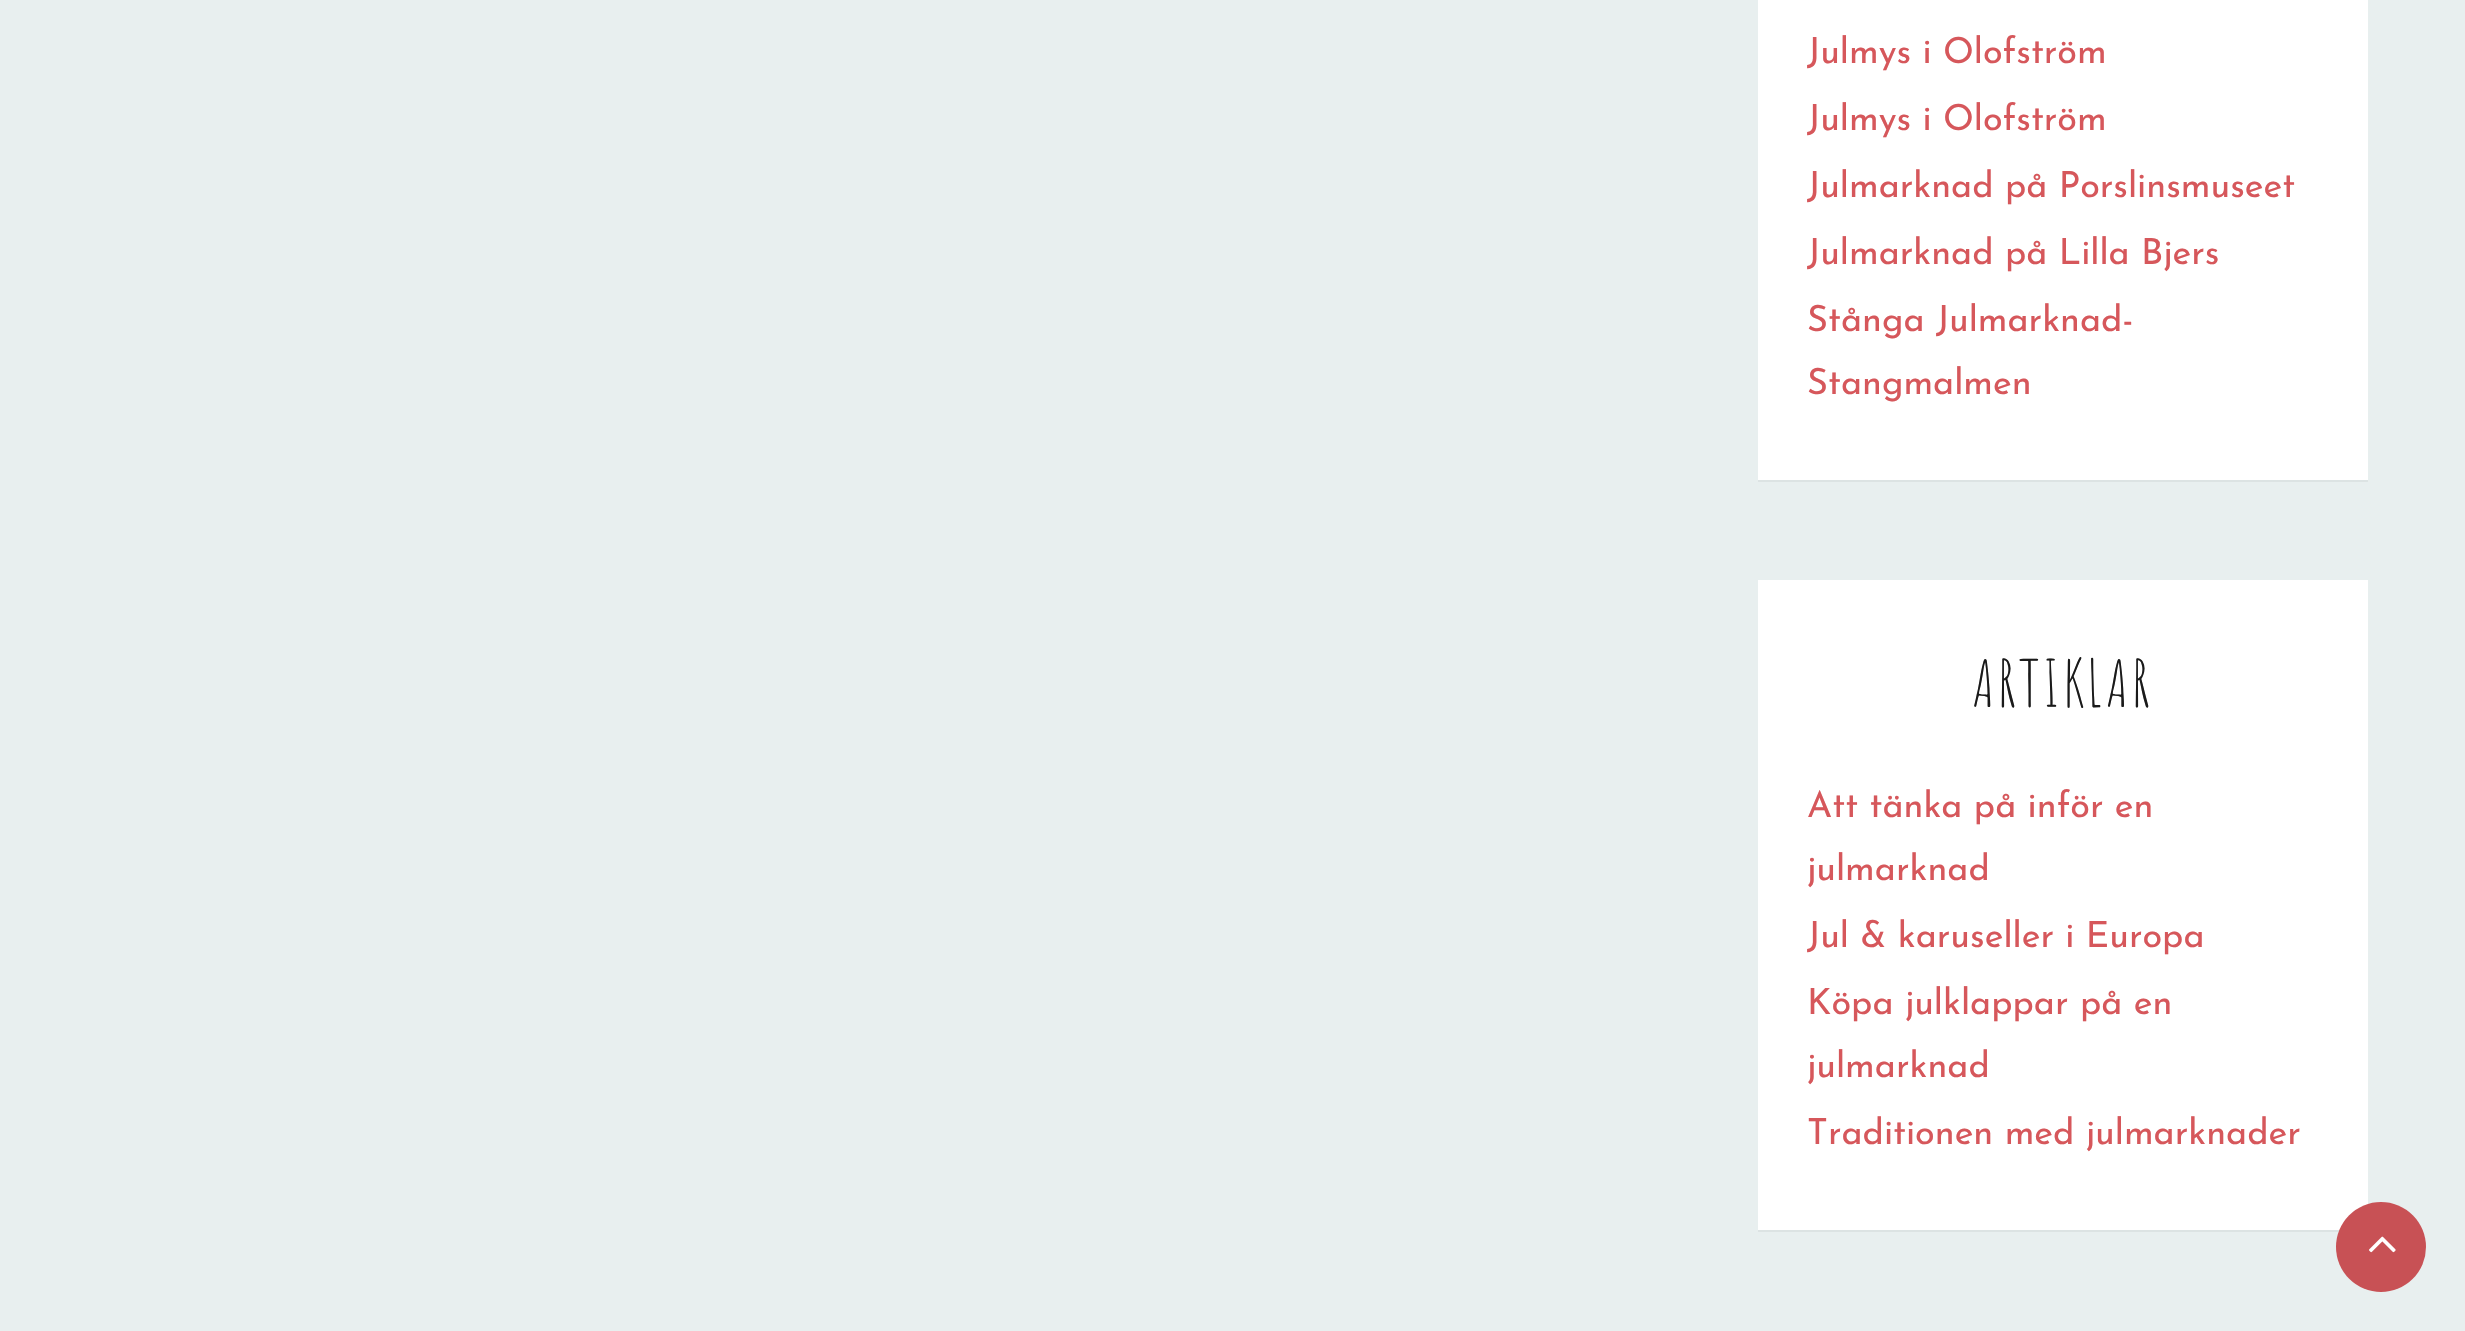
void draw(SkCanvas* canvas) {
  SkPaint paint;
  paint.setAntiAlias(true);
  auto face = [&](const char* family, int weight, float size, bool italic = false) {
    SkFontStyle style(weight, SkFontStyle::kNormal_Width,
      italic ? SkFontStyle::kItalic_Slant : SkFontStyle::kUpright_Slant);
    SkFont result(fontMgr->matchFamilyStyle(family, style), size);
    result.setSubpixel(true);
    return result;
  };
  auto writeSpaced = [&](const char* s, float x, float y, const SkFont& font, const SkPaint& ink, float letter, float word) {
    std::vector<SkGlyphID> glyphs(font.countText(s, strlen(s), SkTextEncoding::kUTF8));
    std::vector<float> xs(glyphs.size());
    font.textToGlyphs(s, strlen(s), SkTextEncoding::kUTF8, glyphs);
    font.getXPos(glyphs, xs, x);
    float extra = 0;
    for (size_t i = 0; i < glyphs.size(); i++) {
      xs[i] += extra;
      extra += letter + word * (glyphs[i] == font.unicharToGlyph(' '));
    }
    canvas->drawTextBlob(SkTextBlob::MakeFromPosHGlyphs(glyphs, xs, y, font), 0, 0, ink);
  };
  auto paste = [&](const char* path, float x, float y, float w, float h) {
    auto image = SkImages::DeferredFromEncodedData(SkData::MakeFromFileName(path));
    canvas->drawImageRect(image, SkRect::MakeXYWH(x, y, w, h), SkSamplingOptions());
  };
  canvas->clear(0xffe8efef);
  {
    const struct { float x, y, w, h; SkColor color; } items[] = {
      {1758, 0, 610, 480, 0xffffffff},
      {1758, 480, 610, 2, 0xffdce3e3},
      {1758, 580, 610, 650, 0xffffffff},
      {1758, 1230, 582, 2, 0xffdce3e3},
    };
    for (auto [x, y, w, h, color] : items) {
      paint.setColor(color);
      canvas->drawRect(SkRect::MakeXYWH(x, y, w, h), paint);
    }
  }
  paint.setColor(0xffc85155);
  canvas->drawCircle(2381, 1247, 45, paint);
  paste("img/1.png", 2369, 1236, 27, 17);
  auto f0 = face("Josefin Sans", 400, 36);
  paint.setColor(0xffd6575b);
  {
    const struct { const char* s; float x, y; } items[] = {
      {"Julmys i Olofström", 1807, 63},
      {"Julmys i Olofström", 1807, 130},
      {"Julmarknad på Porslinsmuseet", 1807, 197},
      {"Julmarknad på Lilla Bjers", 1807, 264},
      {"Stånga Julmarknad-", 1807, 331},
      {"Stangmalmen", 1807, 394},
    };
    for (auto [s, x, y] : items) {
      canvas->drawString(s, x, y, f0, paint);
    }
  }
  auto f1 = face("Amatic SC", 400, 64);
  paint.setColor(0xff1a1a1a);
  writeSpaced("ARTIKLAR", 1972, 707, f1, paint, 3.25f, 0);
  paint.setColor(0xffd6575b);
  {
    const struct { const char* s; float x, y; } items[] = {
      {"Att tänka på inför en", 1807, 817},
      {"julmarknad", 1807, 880},
      {"Jul & karuseller i Europa", 1807, 947},
      {"Köpa julklappar på en", 1807, 1014},
      {"julmarknad", 1807, 1077},
      {"Traditionen med julmarknader", 1807, 1144},
    };
    for (auto [s, x, y] : items) {
      canvas->drawString(s, x, y, f0, paint);
    }
  }
}
